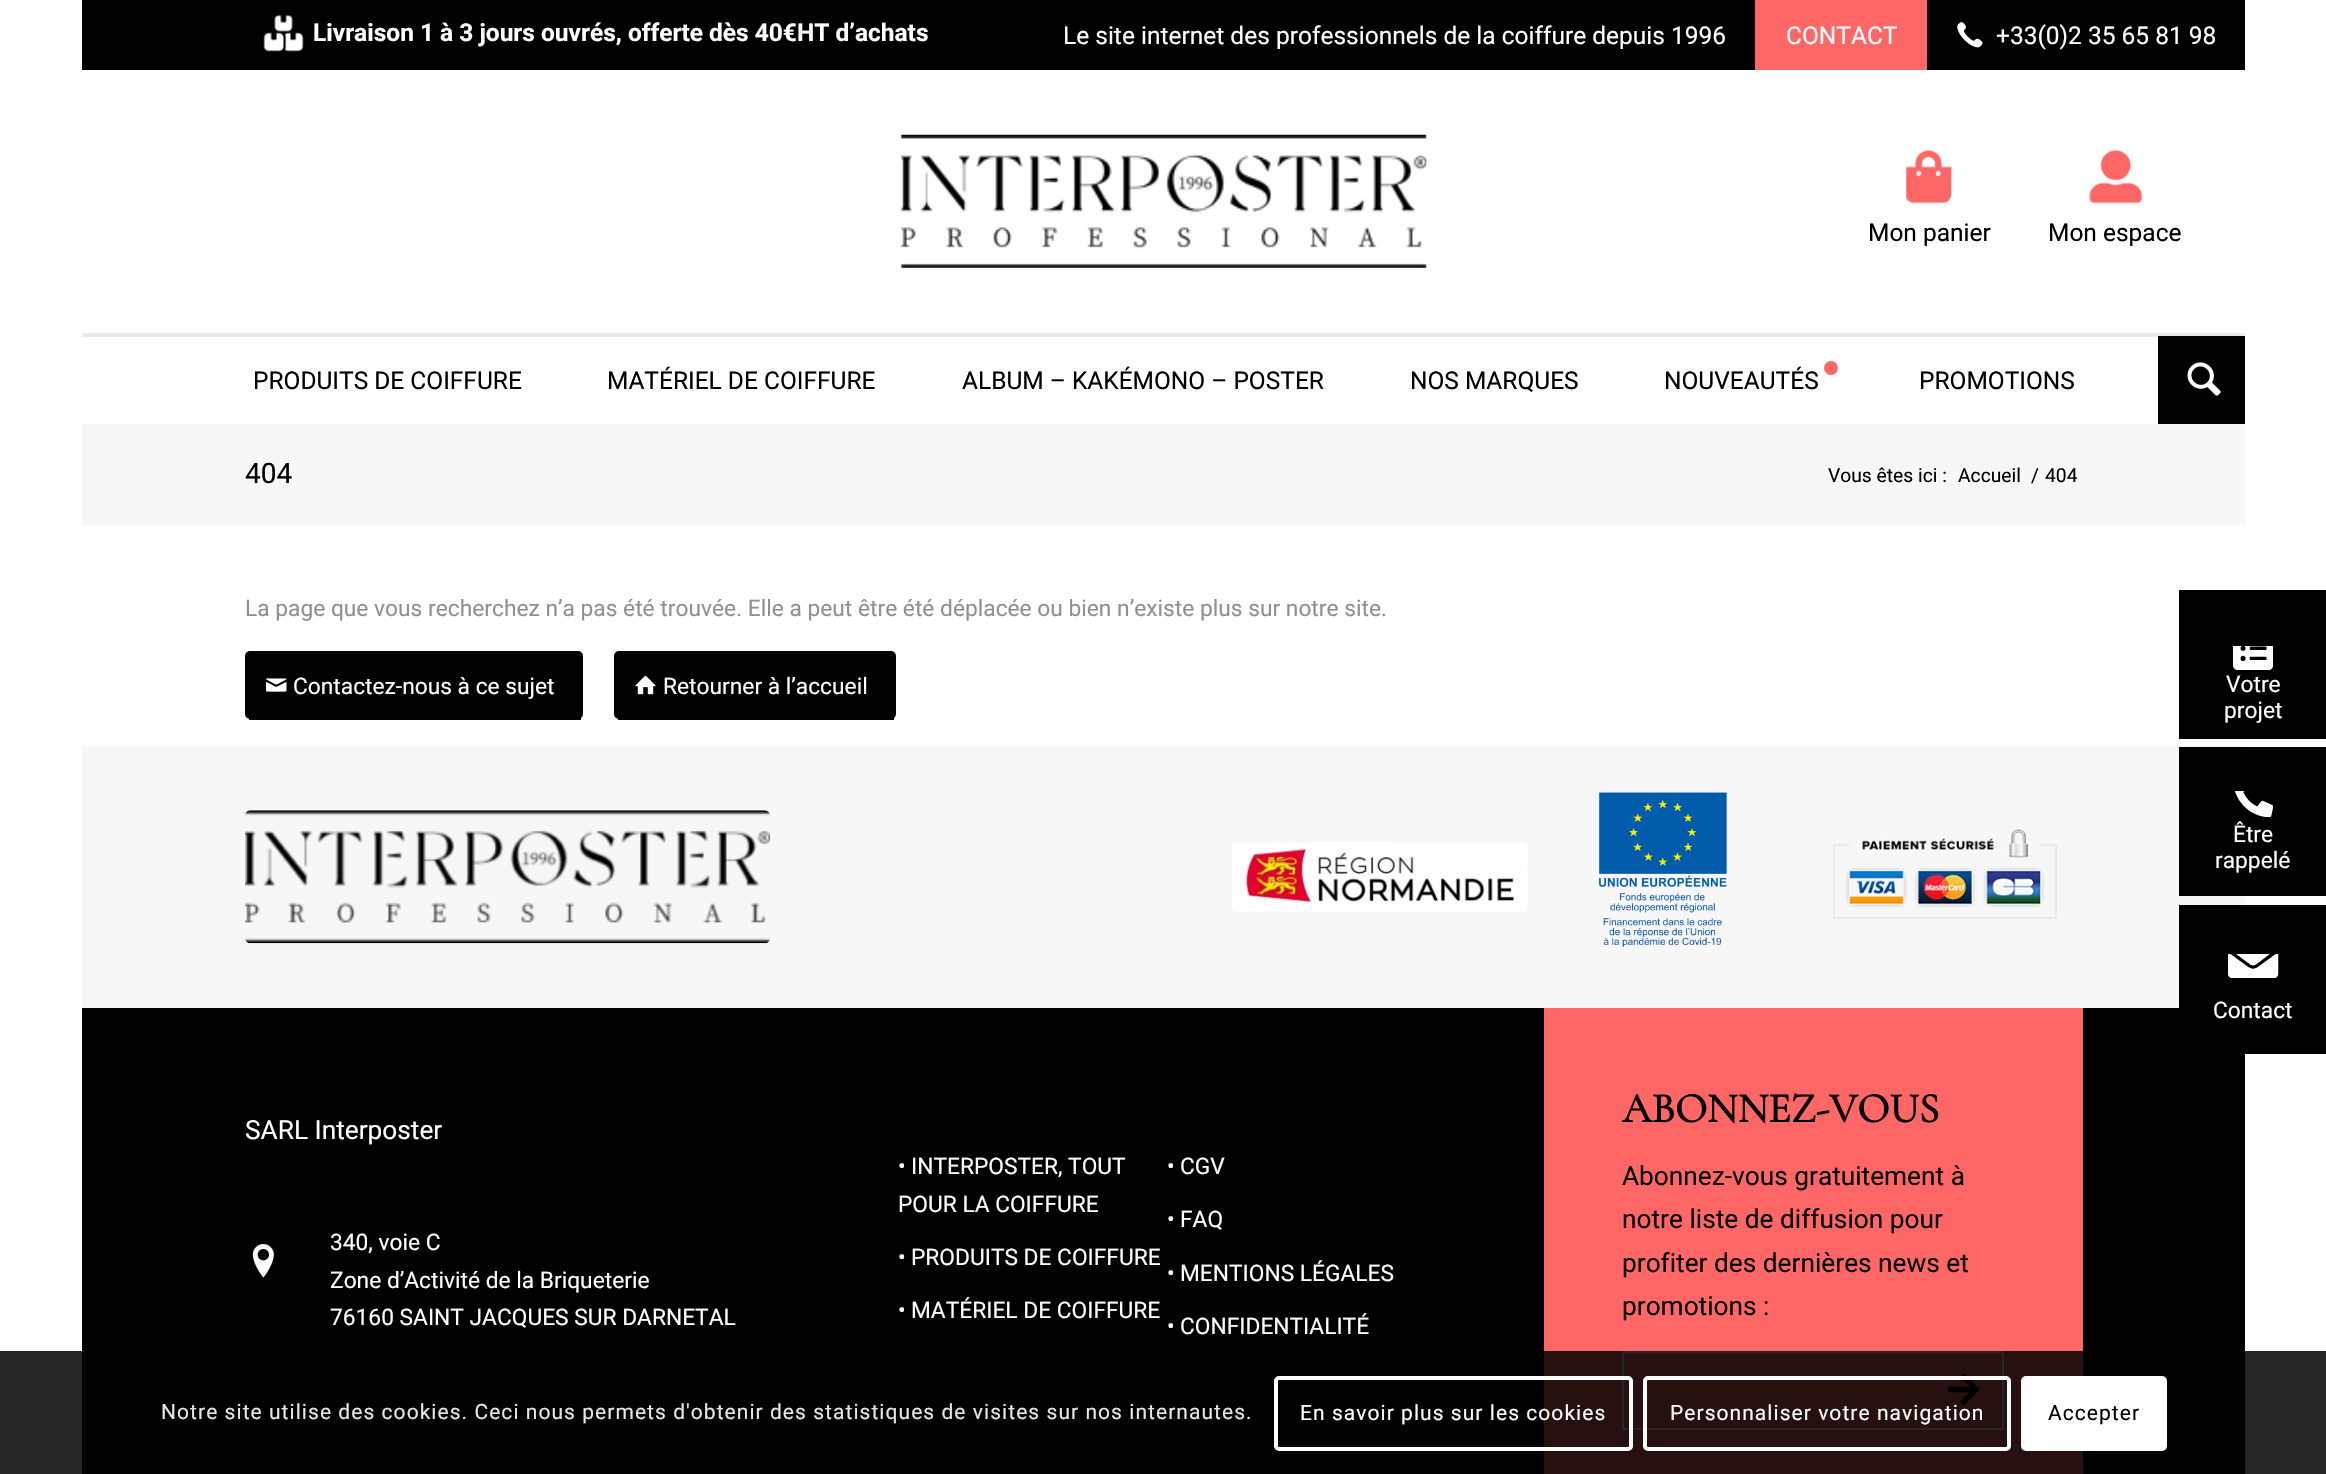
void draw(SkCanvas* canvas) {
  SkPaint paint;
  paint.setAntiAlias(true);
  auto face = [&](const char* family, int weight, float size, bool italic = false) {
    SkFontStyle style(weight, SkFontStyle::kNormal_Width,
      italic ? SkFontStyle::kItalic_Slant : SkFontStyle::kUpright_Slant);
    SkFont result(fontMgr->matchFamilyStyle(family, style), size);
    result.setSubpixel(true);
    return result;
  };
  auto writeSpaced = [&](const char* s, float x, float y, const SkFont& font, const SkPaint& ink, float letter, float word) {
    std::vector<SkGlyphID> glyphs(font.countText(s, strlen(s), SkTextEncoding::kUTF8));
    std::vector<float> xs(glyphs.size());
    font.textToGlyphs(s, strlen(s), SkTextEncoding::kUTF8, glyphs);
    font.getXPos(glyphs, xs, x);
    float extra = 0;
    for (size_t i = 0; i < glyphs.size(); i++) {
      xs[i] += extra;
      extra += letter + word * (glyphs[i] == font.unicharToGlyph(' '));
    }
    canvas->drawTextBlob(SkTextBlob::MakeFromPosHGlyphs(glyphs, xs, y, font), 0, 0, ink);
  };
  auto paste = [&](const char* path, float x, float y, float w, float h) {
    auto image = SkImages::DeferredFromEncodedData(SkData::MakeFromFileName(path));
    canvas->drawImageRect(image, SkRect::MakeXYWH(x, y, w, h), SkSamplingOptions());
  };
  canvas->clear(0xffffffff);
  paint.setColor(0xff000000);
  canvas->drawRect(SkRect::MakeXYWH(82, 0, 2163, 70), paint);
  paste("img/1.png", 263, 15, 41, 37);
  paint.setColor(0xffff6767);
  canvas->drawRect(SkRect::MakeXYWH(1755, 0, 172, 70), paint);
  paste("img/2.png", 1957, 22, 26, 26);
  paste("img/3.png", 901, 134, 526, 134);
  paste("img/4.png", 1906, 150, 46, 54);
  paste("img/5.png", 2089, 150, 54, 54);
  paint.setColor(0xffebebeb);
  canvas->drawRect(SkRect::MakeXYWH(82, 333, 2163, 4), paint);
  paint.setColor(0xffff6767);
  canvas->drawCircle(1831, 368, 7, paint);
  paint.setColor(0xff000000);
  canvas->drawRect(SkRect::MakeXYWH(2158, 336, 87, 88), paint);
  paste("img/6.png", 2187, 362, 34, 34);
  paint.setColor(0xfff7f7f7);
  canvas->drawRect(SkRect::MakeXYWH(82, 424, 2163, 101), paint);
  paint.setColor(0xff000000);
  canvas->drawRoundRect(SkRect::MakeXYWH(245, 651, 338, 68), 5, 5, paint);
  canvas->drawRect(SkRect::MakeXYWH(249, 718, 332, 2), paint);
  paste("img/7.png", 266, 678, 21, 14);
  canvas->drawRoundRect(SkRect::MakeXYWH(614, 651, 282, 68), 5, 5, paint);
  canvas->drawRect(SkRect::MakeXYWH(618, 718, 276, 2), paint);
  paste("img/8.png", 635, 675, 21, 20);
  canvas->drawRect(SkRect::MakeXYWH(2179, 590, 147, 149), paint);
  paste("img/9.png", 2233, 646, 40, 24);
  paint.setColor(0xfff7f7f7);
  canvas->drawRect(SkRect::MakeXYWH(82, 746, 2163, 262), paint);
  paint.setColor(0xff000000);
  canvas->drawRect(SkRect::MakeXYWH(2179, 747, 147, 149), paint);
  paste("img/10.png", 2235, 791, 38, 26);
  canvas->drawRect(SkRect::MakeXYWH(82, 1008, 2163, 466), paint);
  canvas->drawRect(SkRect::MakeXYWH(2179, 905, 147, 149), paint);
  paste("img/11.png", 2228, 954, 51, 24);
  paste("img/12.png", 245, 810, 525, 134);
  paste("img/13.png", 1232, 842, 296, 70);
  paste("img/14.png", 1598, 792, 129, 156);
  paste("img/15.png", 1833, 828, 224, 91);
  paste("img/16.png", 252, 1244, 22, 34);
  paint.setColor(0xffff6767);
  canvas->drawRect(SkRect::MakeXYWH(1544, 1008, 539, 466), paint);
  paint.setStroke(true);
  paint.setStrokeWidth(2);
  paint.setColor(0xffffffff);
  canvas->drawRect(SkRect::MakeXYWH(1623, 1352, 380, 77), paint);
  paste("img/17.png", 1948, 1374, 31, 31);
  paint.setStroke(false);
  paint.setColor(0xd9000000);
  canvas->drawRect(SkRect::MakeXYWH(0, 1351, 2326, 123), paint);
  paint.setStroke(true);
  paint.setStrokeWidth(4);
  paint.setColor(0xffffffff);
  canvas->drawRoundRect(SkRect::MakeXYWH(1276, 1378, 355, 71), 3, 3, paint);
  canvas->drawRoundRect(SkRect::MakeXYWH(1645, 1378, 364, 71), 3, 3, paint);
  paint.setStroke(false);
  canvas->drawRoundRect(SkRect::MakeXYWH(2021, 1376, 146, 75), 5, 5, paint);
  auto f0 = face("Roboto", 700, 24.5f);
  canvas->drawString("Livraison 1 à 3 jours ouvrés, offerte dès 40€HT d’achats", 313, 41, f0, paint);
  auto f1 = face("Roboto", 400, 24.5f);
  {
    const struct { const char* s; float x, y; } items[] = {
      {"Le site internet des professionnels de la coiffure depuis 1996", 1063, 44},
      {"CONTACT", 1786, 44},
      {"+33(0)2 35 65 81 98", 1996, 44},
    };
    for (auto [s, x, y] : items) {
      canvas->drawString(s, x, y, f1, paint);
    }
  }
  paint.setColor(0xff000000);
  {
    const struct { const char* s; float x, y; } items[] = {
      {"Mon panier", 1868, 241},
      {"Mon espace", 2048, 241},
      {"PRODUITS DE COIFFURE", 253, 389},
      {"MATÉRIEL DE COIFFURE", 607, 389},
      {"ALBUM – KAKÉMONO – POSTER", 962, 389},
      {"NOS MARQUES", 1410, 389},
      {"NOUVEAUTÉS", 1664, 389},
      {"PROMOTIONS", 1919, 389},
    };
    for (auto [s, x, y] : items) {
      canvas->drawString(s, x, y, f1, paint);
    }
  }
  auto f2 = face("Roboto", 400, 28);
  canvas->drawString("404", 245, 483, f2, paint);
  auto f3 = face("Roboto", 400, 19.25f);
  {
    const struct { const char* s; float x, y; } items[] = {
      {"Vous êtes ici :", 1828, 482},
      {"Accueil", 1958, 482},
      {"/", 2031, 482},
      {"404", 2045, 482},
    };
    for (auto [s, x, y] : items) {
      canvas->drawString(s, x, y, f3, paint);
    }
  }
  auto f4 = face("Roboto", 400, 22.75f);
  paint.setColor(0xff909090);
  canvas->drawString("La page que vous recherchez n’a pas été trouvée. Elle a peut être été déplacée ou bien n’existe plus sur notre site.", 245, 616, f4, paint);
  paint.setColor(0xffffffff);
  {
    const struct { const char* s; float x, y; } items[] = {
      {"Contactez-nous à ce sujet", 293, 694},
      {"Retourner à l’accueil", 663, 694},
      {"Votre", 2226, 692},
      {"projet", 2224, 718},
      {"Être", 2233, 842},
      {"rappelé", 2215, 868},
      {"Contact", 2213, 1018},
    };
    for (auto [s, x, y] : items) {
      canvas->drawString(s, x, y, f4, paint);
    }
  }
  auto f5 = face("Roboto", 400, 26.25f);
  canvas->drawString("SARL Interposter", 245, 1139, f5, paint);
  {
    const struct { const char* s; float x, y; } items[] = {
      {"340, voie C", 330, 1250},
      {"Zone d’Activité de la Briqueterie", 330, 1288},
      {"76160 SAINT JACQUES SUR DARNETAL", 330, 1325},
      {"•", 898, 1174},
      {"INTERPOSTER, TOUT", 911, 1174},
      {"POUR LA COIFFURE", 898, 1212},
      {"•", 898, 1265},
      {"PRODUITS DE COIFFURE", 911, 1265},
      {"•", 898, 1318},
      {"MATÉRIEL DE COIFFURE", 911, 1318},
      {"•", 1167, 1174},
      {"CGV", 1180, 1174},
      {"•", 1167, 1227},
      {"FAQ", 1180, 1227},
      {"•", 1167, 1281},
      {"MENTIONS LÉGALES", 1180, 1281},
      {"•", 1167, 1334},
      {"CONFIDENTIALITÉ", 1180, 1334},
    };
    for (auto [s, x, y] : items) {
      canvas->drawString(s, x, y, f4, paint);
    }
  }
  auto f6 = face("Cormorant Garamond", 700, 42);
  paint.setColor(0xff000000);
  canvas->drawString("ABONNEZ-VOUS", 1622, 1122, f6, paint);
  {
    const struct { const char* s; float x, y; } items[] = {
      {"Abonnez-vous gratuitement à", 1622, 1185},
      {"notre liste de diffusion pour", 1622, 1228},
      {"profiter des dernières news et", 1622, 1272},
      {"promotions :", 1622, 1315},
    };
    for (auto [s, x, y] : items) {
      canvas->drawString(s, x, y, f5, paint);
    }
  }
  auto f7 = face("Roboto", 400, 21);
  paint.setColor(0xffe6e6e6);
  writeSpaced("Notre site utilise des cookies. Ceci nous permets d'obtenir des statistiques de visites sur nos internautes.", 161, 1419, f7, paint, 1.05f, 0);
  paint.setColor(0xffffffff);
  writeSpaced("En savoir plus sur les cookies", 1300, 1420, f7, paint, 1.05f, 0);
  writeSpaced("Personnaliser votre navigation", 1670, 1420, f7, paint, 1.05f, 0);
  paint.setColor(0xff000000);
  writeSpaced("Accepter", 2048, 1420, f7, paint, 1.05f, 0);
}
